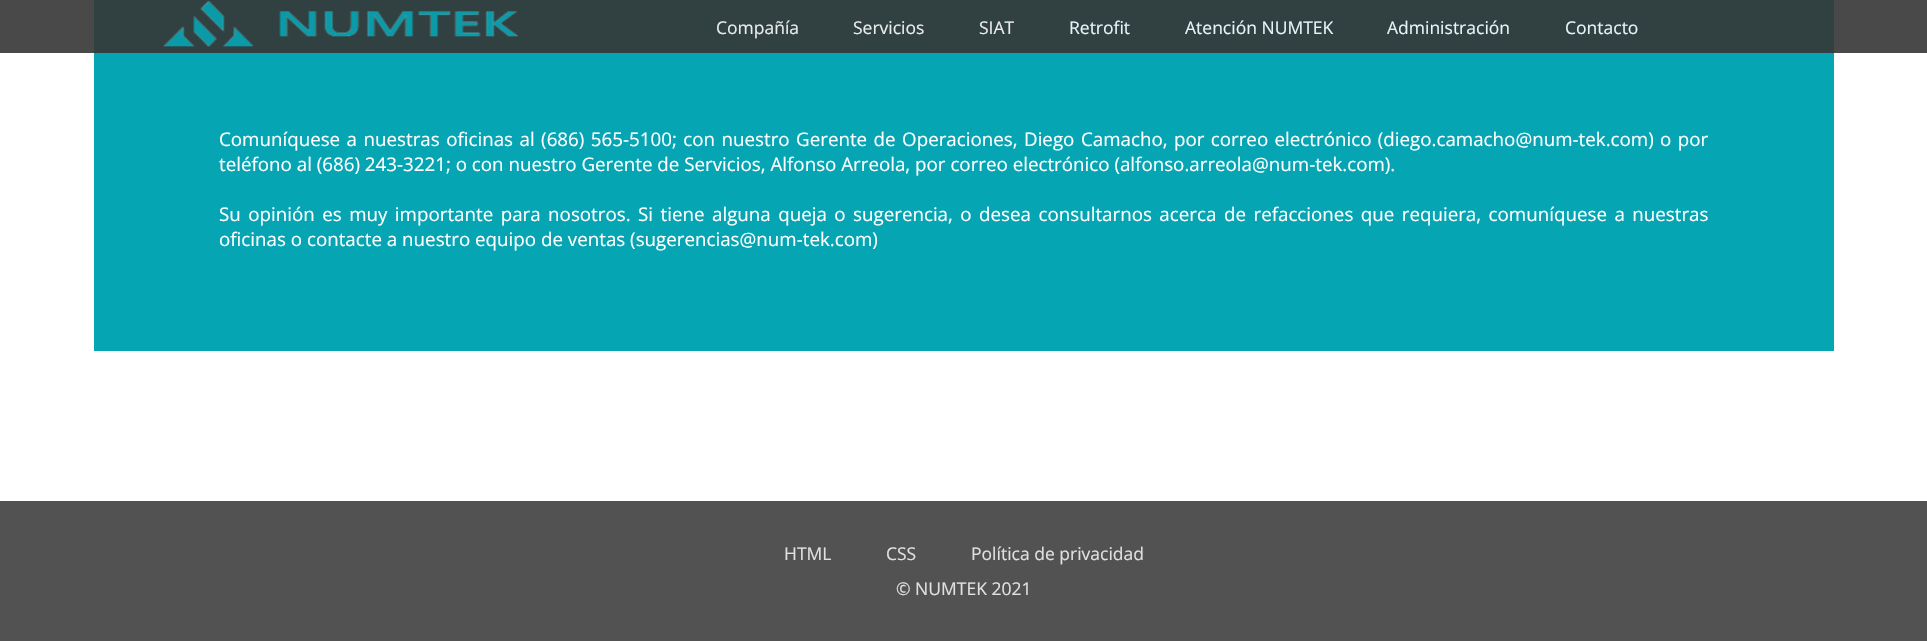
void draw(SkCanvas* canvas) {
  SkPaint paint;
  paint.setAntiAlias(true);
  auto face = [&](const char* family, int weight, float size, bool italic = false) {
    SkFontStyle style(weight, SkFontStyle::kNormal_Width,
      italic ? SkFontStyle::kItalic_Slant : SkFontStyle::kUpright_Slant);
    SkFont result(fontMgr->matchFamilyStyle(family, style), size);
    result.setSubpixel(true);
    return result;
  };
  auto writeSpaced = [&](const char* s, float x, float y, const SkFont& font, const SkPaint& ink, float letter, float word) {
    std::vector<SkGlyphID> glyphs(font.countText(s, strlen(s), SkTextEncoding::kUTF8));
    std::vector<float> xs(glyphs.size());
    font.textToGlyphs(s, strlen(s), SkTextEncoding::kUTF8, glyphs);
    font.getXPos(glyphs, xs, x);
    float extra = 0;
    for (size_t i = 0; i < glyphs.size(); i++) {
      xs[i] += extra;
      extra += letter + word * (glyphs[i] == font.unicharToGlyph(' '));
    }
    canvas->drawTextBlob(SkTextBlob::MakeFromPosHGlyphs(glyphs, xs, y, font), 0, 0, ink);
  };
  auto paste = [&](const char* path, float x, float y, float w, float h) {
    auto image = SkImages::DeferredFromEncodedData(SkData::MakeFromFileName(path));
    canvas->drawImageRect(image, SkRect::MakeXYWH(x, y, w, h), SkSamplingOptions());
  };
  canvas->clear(0xffffffff);
  paint.setColor(0xff06a5b4);
  canvas->drawRect(SkRect::MakeXYWH(94, 0, 1740, 351), paint);
  paint.setColor(0xe6353535);
  canvas->drawRect(SkRect::MakeXYWH(0, 0, 1927, 53), paint);
  paste("img/1.png", 163, 1, 355, 46);
  paint.setColor(0xff525252);
  canvas->drawRect(SkRect::MakeXYWH(0, 501, 1927, 140), paint);
  auto f0 = face("Open Sans", 400, 17.5f);
  paint.setColor(0xffeaecec);
  {
    const struct { const char* s; float x, y; } items[] = {
      {"Compañía", 716, 34},
      {"Servicios", 853, 34},
      {"SIAT", 979, 34},
    };
    for (auto [s, x, y] : items) {
      canvas->drawString(s, x, y, f0, paint);
    }
  }
  paint.setColor(0xffe6f6f8);
  {
    const struct { const char* s; float x, y; } items[] = {
      {"Retrofit", 1069, 34},
      {"Atención NUMTEK", 1185, 34},
      {"Administración", 1387, 34},
      {"Contacto", 1565, 34},
    };
    for (auto [s, x, y] : items) {
      canvas->drawString(s, x, y, f0, paint);
    }
  }
  auto f1 = face("Open Sans", 400, 18.75f);
  paint.setColor(0xffffffff);
  writeSpaced("Comuníquese a nuestras oficinas al (686) 565-5100; con nuestro Gerente de Operaciones, Diego", 219, 146, f1, paint, 0, 1.6f);
  writeSpaced("Camacho, por correo electrónico (diego.camacho@num-tek.com) o por", 1081, 146, f1, paint, 0, 1.5f);
  canvas->drawString("teléfono al (686) 243-3221; o con nuestro Gerente de Servicios, Alfonso Arreola, por correo electrónico (alfonso.arreola@num-tek.com).", 219, 171, f1, paint);
  writeSpaced("Su opinión es muy importante para nosotros. Si tiene alguna queja o sugerencia, o desea consultarnos acerca", 219, 221, f1, paint, 0, 2.6f);
  writeSpaced("de refacciones que requiera, comuníquese a nuestras", 1224, 221, f1, paint, 0, 2.6f);
  canvas->drawString("oficinas o contacte a nuestro equipo de ventas (sugerencias@num-tek.com)", 219, 246, f1, paint);
  paint.setColor(0xffe0e0e0);
  {
    const struct { const char* s; float x, y; } items[] = {
      {"HTML", 784, 560},
      {"CSS", 886, 560},
      {"Política de privacidad", 971, 560},
      {"© NUMTEK 2021", 896, 595},
    };
    for (auto [s, x, y] : items) {
      canvas->drawString(s, x, y, f0, paint);
    }
  }
}
